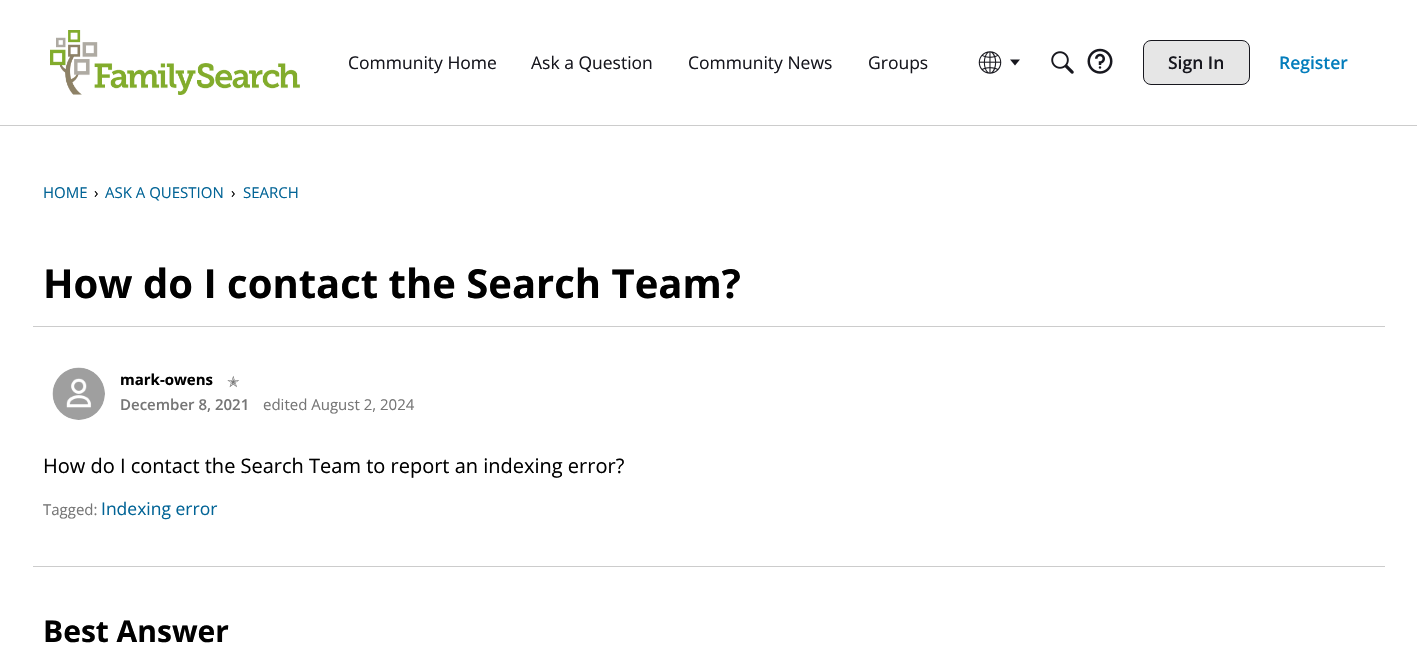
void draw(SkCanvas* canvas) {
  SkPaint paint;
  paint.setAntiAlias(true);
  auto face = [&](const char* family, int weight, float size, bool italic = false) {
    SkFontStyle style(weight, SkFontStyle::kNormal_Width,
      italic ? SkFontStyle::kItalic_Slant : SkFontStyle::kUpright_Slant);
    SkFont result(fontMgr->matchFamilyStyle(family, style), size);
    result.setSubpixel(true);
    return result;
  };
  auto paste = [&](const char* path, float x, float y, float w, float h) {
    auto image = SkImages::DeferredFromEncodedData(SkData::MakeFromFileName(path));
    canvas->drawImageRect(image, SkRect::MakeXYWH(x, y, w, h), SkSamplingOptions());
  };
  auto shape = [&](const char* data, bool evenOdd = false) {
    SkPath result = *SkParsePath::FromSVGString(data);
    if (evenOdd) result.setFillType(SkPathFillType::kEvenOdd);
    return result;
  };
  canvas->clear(0xffffffff);
  paint.setColor(0xffcccccc);
  canvas->drawRect(SkRect::MakeXYWH(0, 125, 1417, 1), paint);
  paste("img/1.png", 50, 30, 250, 65);
  paste("img/2.png", 978, 51, 24, 23);
  paint.setColor(0xff17171e);
  canvas->drawPath(shape("M1010 59.5H1020L1015 65.5Z"), paint);
  paste("img/3.png", 1051, 51, 23, 23);
  paste("img/4.png", 1087, 48, 26, 26);
  paint.setColor(0xffe6e6e6);
  canvas->drawRoundRect(SkRect::MakeXYWH(1143.5f, 40.5f, 106, 44), 7.5f, 7.5f, paint);
  paint.setStroke(true);
  paint.setStrokeWidth(1);
  paint.setColor(0xff17171e);
  canvas->drawRoundRect(SkRect::MakeXYWH(1143.5f, 40.5f, 106, 44), 7.5f, 7.5f, paint);
  paint.setStroke(false);
  paint.setColor(0xffcccccc);
  canvas->drawRect(SkRect::MakeXYWH(33, 326, 1352, 1), paint);
  paste("img/5.png", 52, 367, 53, 53);
  canvas->drawRect(SkRect::MakeXYWH(33, 566, 1352, 1), paint);
  auto f0 = face("Open Sans", 400, 17.5f);
  paint.setColor(0xff17171e);
  {
    const struct { const char* s; float x, y; } items[] = {
      {"Community Home", 348, 69},
      {"Ask a Question", 531, 69},
      {"Community News", 688, 69},
      {"Groups", 868, 69},
    };
    for (auto [s, x, y] : items) {
      canvas->drawString(s, x, y, f0, paint);
    }
  }
  auto f1 = face("Open Sans", 600, 17.5f);
  canvas->drawString("Sign In", 1168, 69, f1, paint);
  paint.setColor(0xff037dbc);
  canvas->drawString("Register", 1279, 69, f1, paint);
  auto f2 = face("Open Sans", 400, 15);
  paint.setColor(0xff026496);
  canvas->drawString("HOME", 43, 198, f2, paint);
  paint.setColor(0xff000000);
  canvas->drawString("›", 94, 198, f2, paint);
  paint.setColor(0xff026496);
  canvas->drawString("ASK A QUESTION", 105, 198, f2, paint);
  paint.setColor(0xff000000);
  canvas->drawString("›", 231, 198, f2, paint);
  paint.setColor(0xff026496);
  canvas->drawString("SEARCH", 243, 198, f2, paint);
  auto f3 = face("Open Sans", 700, 40);
  paint.setColor(0xff000000);
  canvas->drawString("How do I contact the Search Team?", 43, 298, f3, paint);
  auto f4 = face("Open Sans", 700, 15);
  canvas->drawString("mark-owens", 120, 385, f4, paint);
  auto f5 = face("DejaVu Sans", 400, 15);
  paint.setColor(0xff767676);
  canvas->drawString("✭", 227, 387, f5, paint);
  auto f6 = face("Open Sans", 600, 15);
  canvas->drawString("December 8, 2021", 120, 410, f6, paint);
  canvas->drawString("edited August 2, 2024", 263, 410, f2, paint);
  auto f7 = face("Open Sans", 400, 20);
  paint.setColor(0xff000000);
  canvas->drawString("How do I contact the Search Team to report an indexing error?", 43, 473, f7, paint);
  paint.setColor(0xff767676);
  canvas->drawString("Tagged:", 43, 515, f2, paint);
  paint.setColor(0xff026496);
  canvas->drawString("Indexing error", 101, 515, f0, paint);
  auto f8 = face("Open Sans", 700, 30);
  paint.setColor(0xff000000);
  canvas->drawString("Best Answer", 43, 642, f8, paint);
}
